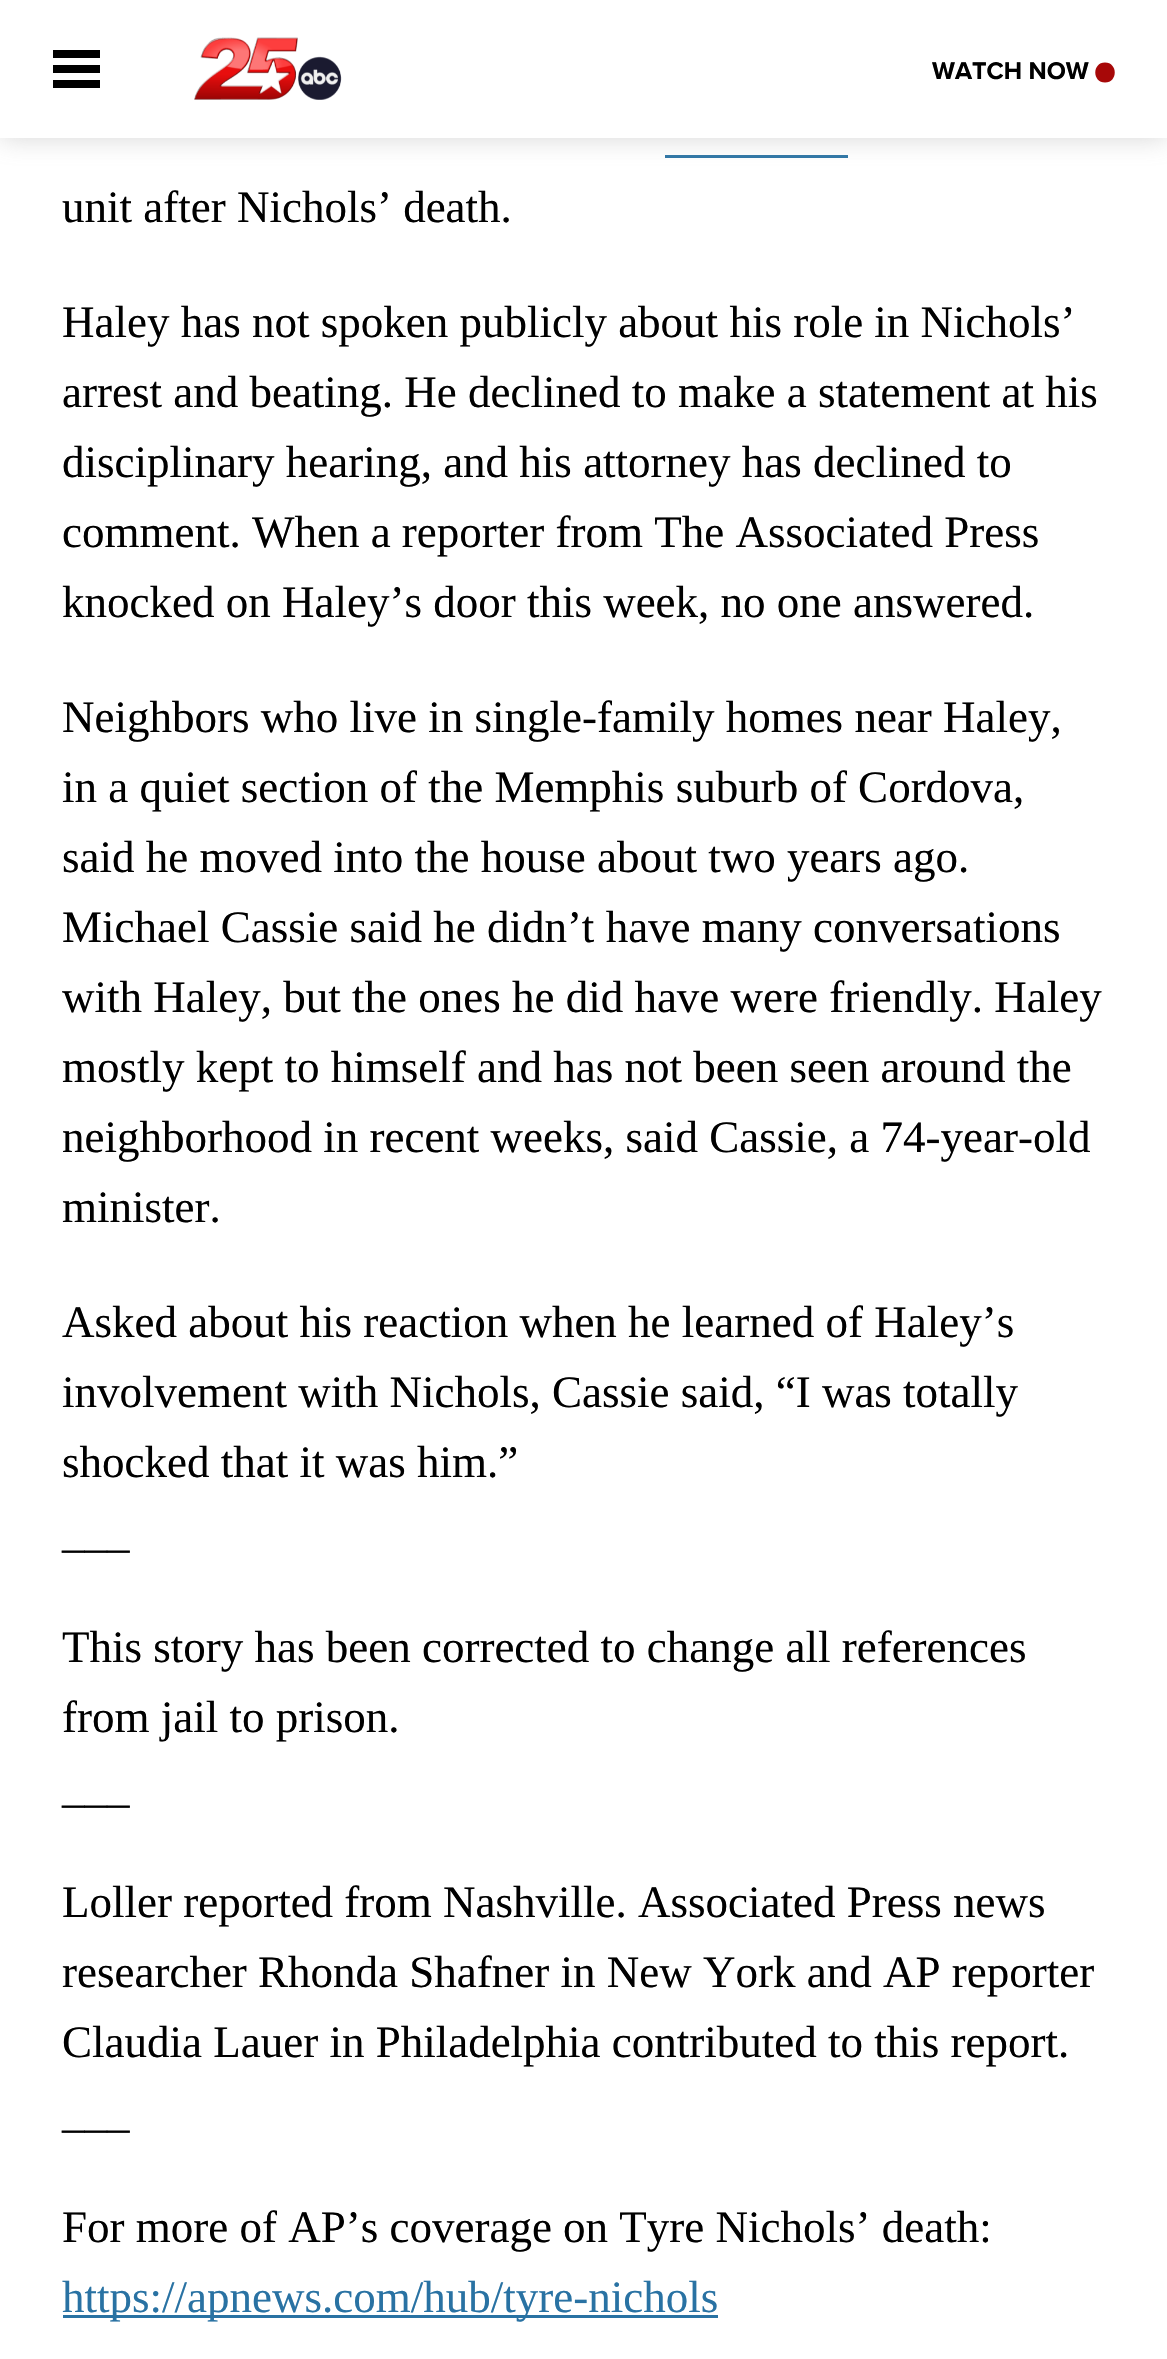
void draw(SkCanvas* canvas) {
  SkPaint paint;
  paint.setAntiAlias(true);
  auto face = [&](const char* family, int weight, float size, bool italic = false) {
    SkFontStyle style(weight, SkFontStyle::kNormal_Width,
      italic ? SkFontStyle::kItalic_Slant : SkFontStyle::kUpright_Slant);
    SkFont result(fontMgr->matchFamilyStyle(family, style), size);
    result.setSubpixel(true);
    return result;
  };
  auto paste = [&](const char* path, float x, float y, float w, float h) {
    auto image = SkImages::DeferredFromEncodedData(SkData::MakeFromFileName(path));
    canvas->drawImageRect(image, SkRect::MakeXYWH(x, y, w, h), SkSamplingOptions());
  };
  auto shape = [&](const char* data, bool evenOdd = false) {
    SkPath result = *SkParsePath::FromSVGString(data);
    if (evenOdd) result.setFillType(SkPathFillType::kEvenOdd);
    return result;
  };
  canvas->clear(0xffffffff);
  paint.setColor(0xff2972a3);
  canvas->drawRect(SkRect::MakeXYWH(665, 155, 183, 3), paint);
  canvas->save();
  canvas->clipPath(shape("M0 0H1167V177H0ZM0 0H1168V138H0Z", true), true);
  paint.setColor(0xcccccccc);
  paint.setMaskFilter(SkMaskFilter::MakeBlur(kNormal_SkBlurStyle, 12.5f));
  canvas->drawRect(SkRect::MakeXYWH(0, 0, 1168, 138), paint);
  paint.setMaskFilter(nullptr);
  canvas->restore();
  {
    const struct { float x, y, w, h; SkColor color; } items[] = {
      {0, 137, 1167, 1, 0xfaffffff},
      {53, 50, 47, 8, 0xff000000},
      {53, 65, 47, 8, 0xff000000},
      {53, 80, 47, 8, 0xff000000},
    };
    for (auto [x, y, w, h, color] : items) {
      paint.setColor(color);
      canvas->drawRect(SkRect::MakeXYWH(x, y, w, h), paint);
    }
  }
  paste("img/1.png", 194, 37, 148, 63);
  paint.setColor(0xffa70808);
  canvas->drawPath(shape("M1105 82.5C1118 82.5 1118 62.5 1105 62.5C1092 62.5 1092 82.5 1105 82.5Z"), paint);
  paint.setColor(0xff2972a3);
  canvas->drawRect(SkRect::MakeXYWH(63, 2315, 655, 3), paint);
  auto f0 = face("Proxima Nova", 700, 25);
  paint.setColor(0xff000000);
  canvas->drawString("WATCH NOW", 932, 79, f0, paint);
  auto f1 = face("Liberation Serif", 400, 45);
  {
    const struct { const char* s; float x, y; } items[] = {
      {"unit after Nichols’ death.", 62, 222},
      {"Haley has not spoken publicly about his role in Nichols’", 62, 337},
      {"arrest and beating. He declined to make a statement at his", 62, 407},
      {"disciplinary hearing, and his attorney has declined to", 62, 477},
      {"comment. When a reporter from The Associated Press", 62, 547},
      {"knocked on Haley’s door this week, no one answered.", 62, 617},
      {"Neighbors who live in single-family homes near Haley,", 62, 732},
      {"in a quiet section of the Memphis suburb of Cordova,", 62, 802},
      {"said he moved into the house about two years ago.", 62, 872},
      {"Michael Cassie said he didn’t have many conversations", 62, 942},
      {"with Haley, but the ones he did have were friendly. Haley", 62, 1012},
      {"mostly kept to himself and has not been seen around the", 62, 1082},
      {"neighborhood in recent weeks, said Cassie, a 74-year-old", 62, 1152},
      {"minister.", 62, 1222},
      {"Asked about his reaction when he learned of Haley’s", 62, 1337},
      {"involvement with Nichols, Cassie said, “I was totally", 62, 1407},
      {"shocked that it was him.”", 62, 1477},
      {"___", 62, 1547},
      {"This story has been corrected to change all references", 62, 1662},
      {"from jail to prison.", 62, 1732},
      {"___", 62, 1802},
      {"Loller reported from Nashville. Associated Press news", 62, 1917},
      {"researcher Rhonda Shafner in New York and AP reporter", 62, 1987},
      {"Claudia Lauer in Philadelphia contributed to this report.", 62, 2057},
      {"___", 62, 2127},
      {"For more of AP’s coverage on Tyre Nichols’ death:", 62, 2242},
    };
    for (auto [s, x, y] : items) {
      canvas->drawString(s, x, y, f1, paint);
    }
  }
  paint.setColor(0xff2972a3);
  canvas->drawString("https://apnews.com/hub/tyre-nichols", 62, 2312, f1, paint);
}
